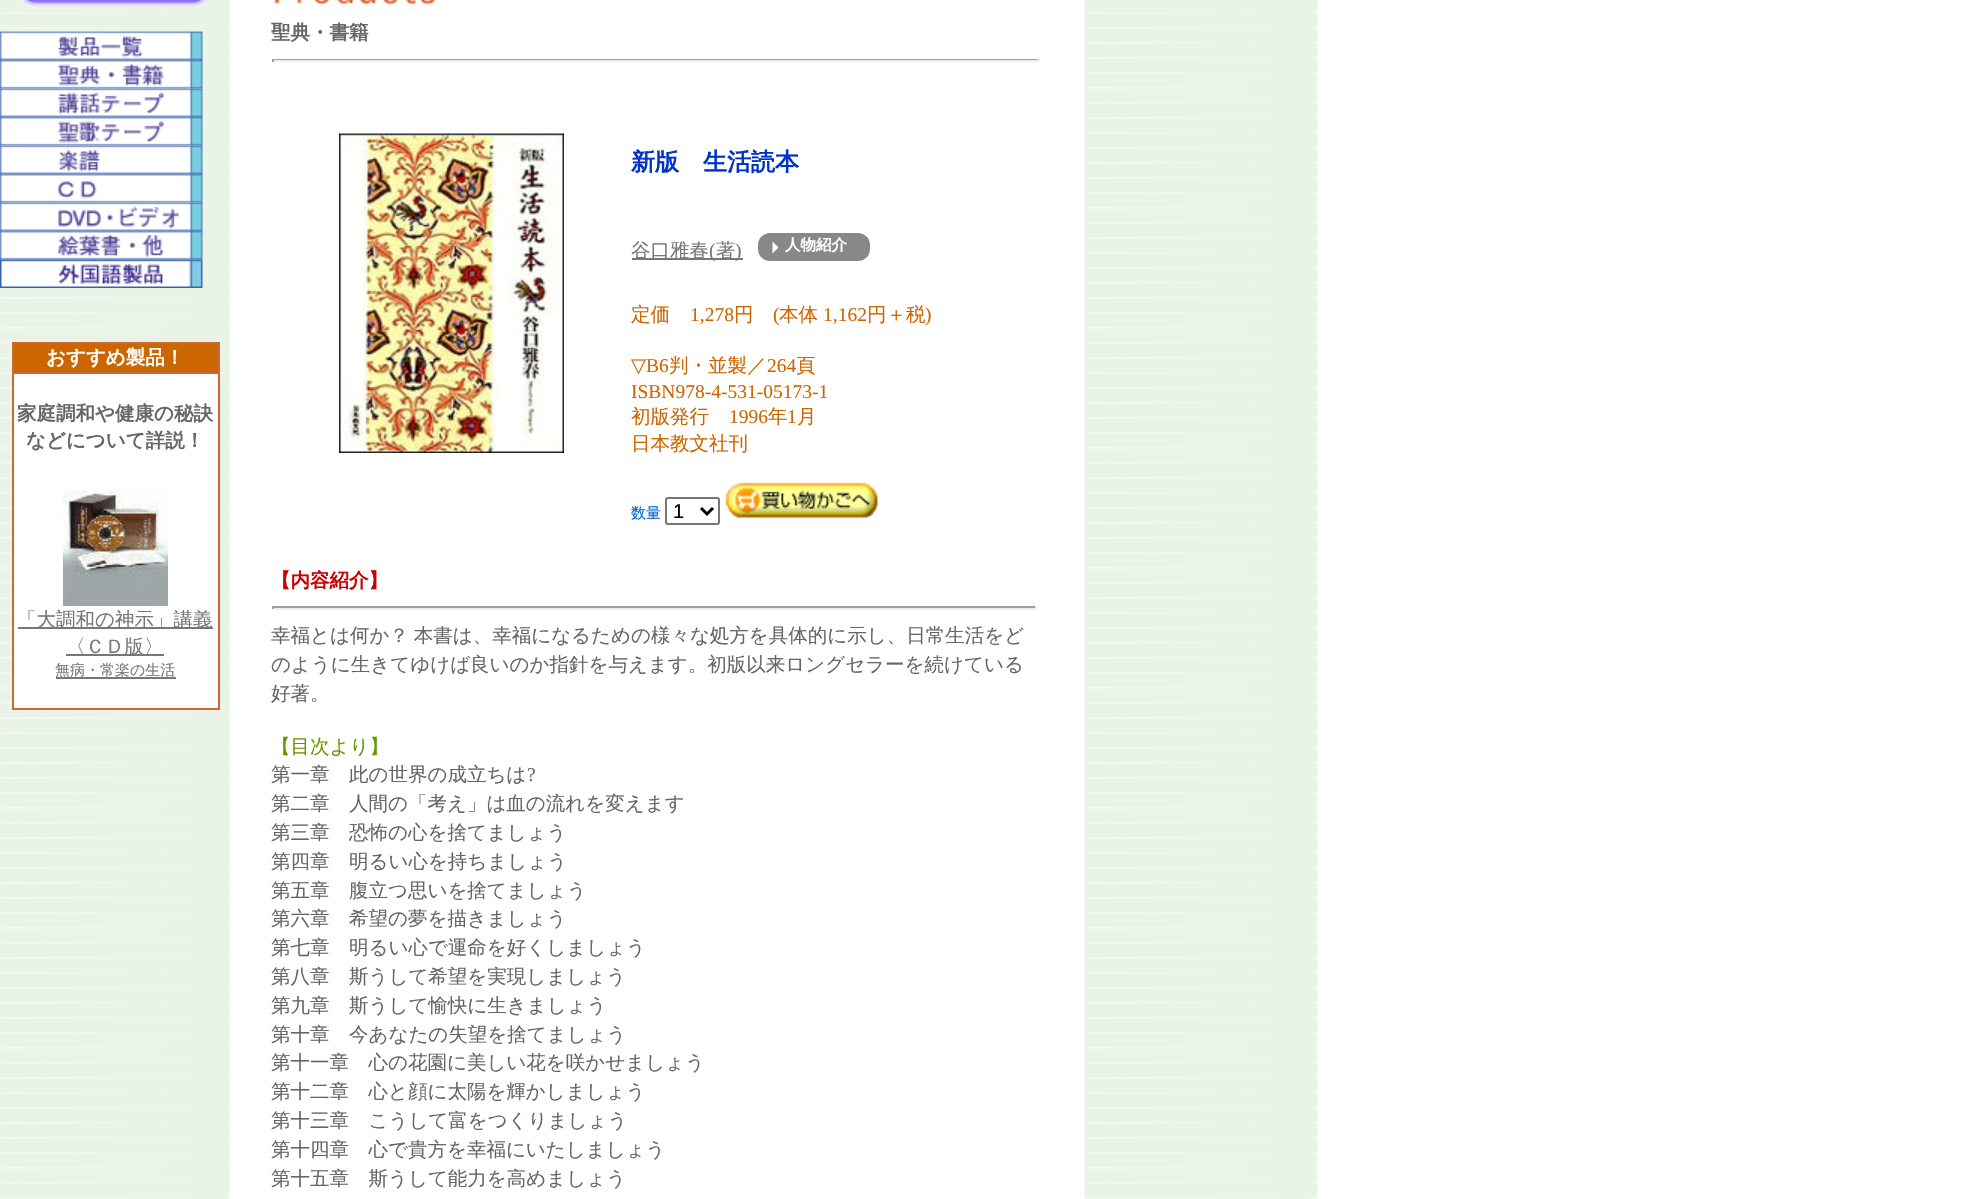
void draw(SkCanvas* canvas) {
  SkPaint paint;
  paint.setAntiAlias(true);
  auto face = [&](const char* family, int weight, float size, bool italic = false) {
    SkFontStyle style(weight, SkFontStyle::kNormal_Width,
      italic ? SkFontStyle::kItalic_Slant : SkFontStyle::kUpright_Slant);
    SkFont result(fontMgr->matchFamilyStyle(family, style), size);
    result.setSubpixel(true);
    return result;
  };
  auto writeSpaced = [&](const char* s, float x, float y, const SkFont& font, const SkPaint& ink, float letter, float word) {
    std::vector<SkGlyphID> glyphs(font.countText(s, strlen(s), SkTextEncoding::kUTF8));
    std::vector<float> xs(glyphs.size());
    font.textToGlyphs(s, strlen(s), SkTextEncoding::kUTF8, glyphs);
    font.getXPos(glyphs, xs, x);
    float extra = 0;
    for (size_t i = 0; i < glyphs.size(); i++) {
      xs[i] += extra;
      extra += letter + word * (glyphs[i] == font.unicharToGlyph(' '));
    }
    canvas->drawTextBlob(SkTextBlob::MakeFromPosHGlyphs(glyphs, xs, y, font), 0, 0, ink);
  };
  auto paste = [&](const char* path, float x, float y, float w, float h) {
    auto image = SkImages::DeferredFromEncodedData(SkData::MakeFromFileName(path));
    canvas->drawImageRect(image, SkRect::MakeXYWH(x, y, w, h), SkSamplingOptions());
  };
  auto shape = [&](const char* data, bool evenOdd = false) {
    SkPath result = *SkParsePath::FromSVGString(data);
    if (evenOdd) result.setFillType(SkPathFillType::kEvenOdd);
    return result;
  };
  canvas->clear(0xffffffff);
  paste("img/1.png", 0, 0, 230, 1199);
  paste("img/2.png", 20, 0, 188, 7);
  paste("img/3.png", 0, 31, 203, 29);
  paste("img/4.png", 0, 60, 203, 29);
  paste("img/5.png", 0, 88, 203, 29);
  paste("img/6.png", 0, 117, 203, 29);
  paste("img/7.png", 0, 145, 203, 29);
  paste("img/8.png", 0, 174, 203, 29);
  paste("img/9.png", 0, 202, 203, 29);
  paste("img/10.png", 0, 231, 203, 29);
  paste("img/11.png", 0, 259, 203, 29);
  {
    const struct { float x, y, w, h; SkColor color; } items[] = {
      {12, 342, 207, 2, 0xffcc6633},
      {218, 342, 2, 368, 0xffcc6633},
      {12, 708, 207, 2, 0xffcc6633},
      {12, 342, 2, 368, 0xffcc6633},
      {14, 344, 204, 28, 0xffcc6600},
      {14, 374, 204, 334, 0xffffffff},
      {12, 372, 207, 2, 0xffcc6633},
    };
    for (auto [x, y, w, h, color] : items) {
      paint.setColor(color);
      canvas->drawRect(SkRect::MakeXYWH(x, y, w, h), paint);
    }
  }
  paste("img/12.png", 63, 490, 105, 116);
  {
    const struct { float x, y, w, h; SkColor color; } items[] = {
      {18, 627, 195, 2, 0xff777777},
      {66, 654, 98, 2, 0xff777777},
      {56, 677, 120, 2, 0xff777777},
    };
    for (auto [x, y, w, h, color] : items) {
      paint.setColor(color);
      canvas->drawRect(SkRect::MakeXYWH(x, y, w, h), paint);
    }
  }
  paste("img/13.png", 274, 0, 162, 5);
  {
    const struct { float x, y, w, h; SkColor color; } items[] = {
      {272, 59, 768, 1, 0xff9f9f9f},
      {1038, 59, 2, 3, 0xffeeeeee},
      {272, 60, 768, 2, 0xffeeeeee},
      {272, 59, 2, 3, 0xff9f9f9f},
    };
    for (auto [x, y, w, h, color] : items) {
      paint.setColor(color);
      canvas->drawRect(SkRect::MakeXYWH(x, y, w, h), paint);
    }
  }
  paste("img/14.png", 339, 133, 225, 320);
  paint.setColor(0xff777777);
  canvas->drawRect(SkRect::MakeXYWH(632, 258, 111, 2), paint);
  paint.setColor(0xff888888);
  canvas->drawRoundRect(SkRect::MakeXYWH(758, 233, 112, 28), 12, 12, paint);
  paint.setColor(0xffffffff);
  canvas->drawPath(shape("M772.5 253.5V241.5L778.5 247.5Z"), paint);
  paint.setStroke(true);
  paint.setStrokeWidth(2);
  paint.setColor(0xff767676);
  canvas->drawRoundRect(SkRect::MakeXYWH(666, 498, 53, 26), 2, 2, paint);
  paint.setStrokeWidth(3);
  paint.setColor(0xff000000);
  canvas->drawPath(shape("M701 508L707 514L713 508"), paint);
  paste("img/15.png", 725, 482, 153, 36);
  paint.setStroke(false);
  {
    const struct { float x, y, w, h; SkColor color; } items[] = {
      {272, 606, 765, 2, 0xff9f9f9f},
      {1035, 606, 2, 3, 0xffeeeeee},
      {272, 608, 765, 2, 0xffeeeeee},
      {272, 606, 2, 3, 0xff9f9f9f},
    };
    for (auto [x, y, w, h, color] : items) {
      paint.setColor(color);
      canvas->drawRect(SkRect::MakeXYWH(x, y, w, h), paint);
    }
  }
  paste("img/16.png", 1084, 0, 233, 1199);
  auto f0 = face("WenQuanYi Zen Hei", 700, 19.5f);
  paint.setColor(0xffffffff);
  canvas->drawString("おすすめ製品！", 46, 364, f0, paint);
  paint.setColor(0xff666666);
  canvas->drawString("家庭調和や健康の秘訣", 17, 420, f0, paint);
  canvas->drawString("などについて詳説！", 26, 447, f0, paint);
  auto f1 = face("WenQuanYi Zen Hei", 500, 19.5f);
  paint.setColor(0xff777777);
  canvas->drawString("「大調和の神示」講義", 17, 626, f1, paint);
  canvas->drawString("〈ＣＤ版〉", 66, 653, f1, paint);
  auto f2 = face("WenQuanYi Zen Hei", 500, 15);
  canvas->drawString("無病・常楽の生活", 55, 675, f2, paint);
  paint.setColor(0xff666666);
  canvas->drawString("聖典・書籍", 271, 39, f0, paint);
  auto f3 = face("WenQuanYi Zen Hei", 700, 24);
  paint.setColor(0xff0033cc);
  canvas->drawString("新版　生活読本", 631, 170, f3, paint);
  paint.setColor(0xff777777);
  canvas->drawString("谷口雅春", 631, 257, f1, paint);
  auto f4 = face("Liberation Serif", 400, 19.5f);
  canvas->drawString("(", 709, 257, f4, paint);
  canvas->drawString("著", 716, 257, f1, paint);
  canvas->drawString(")", 735, 257, f4, paint);
  auto f5 = face("WenQuanYi Zen Hei", 700, 15.5f);
  paint.setColor(0xffffffff);
  canvas->drawString("人物紹介", 785, 250, f5, paint);
  paint.setColor(0xffcc6600);
  canvas->drawString("定価", 631, 321, f1, paint);
  canvas->drawString("1,278", 690, 321, f4, paint);
  canvas->drawString("円", 734, 321, f1, paint);
  canvas->drawString("(", 773, 321, f4, paint);
  canvas->drawString("本体", 779, 321, f1, paint);
  canvas->drawString("1,162", 823, 321, f4, paint);
  canvas->drawString("円＋税", 867, 321, f1, paint);
  canvas->drawString(")", 925, 321, f4, paint);
  auto f6 = face("DejaVu Sans", 400, 19.5f);
  canvas->drawString("▽", 631, 372, f6, paint);
  canvas->drawString("B6", 646, 372, f4, paint);
  canvas->drawString("判・並製／", 669, 372, f1, paint);
  canvas->drawString("264", 767, 372, f4, paint);
  canvas->drawString("頁", 796, 372, f1, paint);
  canvas->drawString("ISBN978-4-531-05173-1", 631, 398, f4, paint);
  canvas->drawString("初版発行", 631, 423, f1, paint);
  canvas->drawString("1996", 729, 423, f4, paint);
  canvas->drawString("年", 768, 423, f1, paint);
  canvas->drawString("1", 787, 423, f4, paint);
  canvas->drawString("月", 797, 423, f1, paint);
  canvas->drawString("日本教文社刊", 631, 450, f1, paint);
  paint.setColor(0xff0066cc);
  canvas->drawString("数量", 631, 518, f2, paint);
  auto f7 = face("Liberation Sans", 400, 20);
  paint.setColor(0xff000000);
  canvas->drawString("1", 673, 518, f7, paint);
  paint.setColor(0xffcc0000);
  canvas->drawString("【内容紹介】", 271, 587, f0, paint);
  paint.setColor(0xff666666);
  writeSpaced("幸福とは何か？ 本書は、幸福になるための様々な処方を具体的に示し、日常生活をど", 271, 642, f1, paint, 0, -1);
  canvas->drawString("のように生きてゆけば良いのか指針を与えます。初版以来ロングセラーを続けている", 271, 671, f1, paint);
  canvas->drawString("好著。", 271, 700, f1, paint);
  paint.setColor(0xff669900);
  canvas->drawString("【目次より】", 271, 753, f1, paint);
  paint.setColor(0xff666666);
  canvas->drawString("第一章　此の世界の成立ちは", 271, 781, f1, paint);
  canvas->drawString("?", 527, 781, f4, paint);
  {
    const struct { const char* s; float x, y; } items[] = {
      {"第二章　人間の「考え」は血の流れを変えます", 271, 810},
      {"第三章　恐怖の心を捨てましょう", 271, 839},
      {"第四章　明るい心を持ちましょう", 271, 868},
      {"第五章　腹立つ思いを捨てましょう", 271, 897},
      {"第六章　希望の夢を描きましょう", 271, 925},
      {"第七章　明るい心で運命を好くしましょう", 271, 954},
      {"第八章　斯うして希望を実現しましょう", 271, 983},
      {"第九章　斯うして愉快に生きましょう", 271, 1012},
      {"第十章　今あなたの失望を捨てましょう", 271, 1041},
      {"第十一章　心の花園に美しい花を咲かせましょう", 271, 1069},
      {"第十二章　心と顔に太陽を輝かしましょう", 271, 1098},
      {"第十三章　こうして富をつくりましょう", 271, 1127},
      {"第十四章　心で貴方を幸福にいたしましょう", 271, 1156},
      {"第十五章　斯うして能力を高めましょう", 271, 1185},
    };
    for (auto [s, x, y] : items) {
      canvas->drawString(s, x, y, f1, paint);
    }
  }
}
